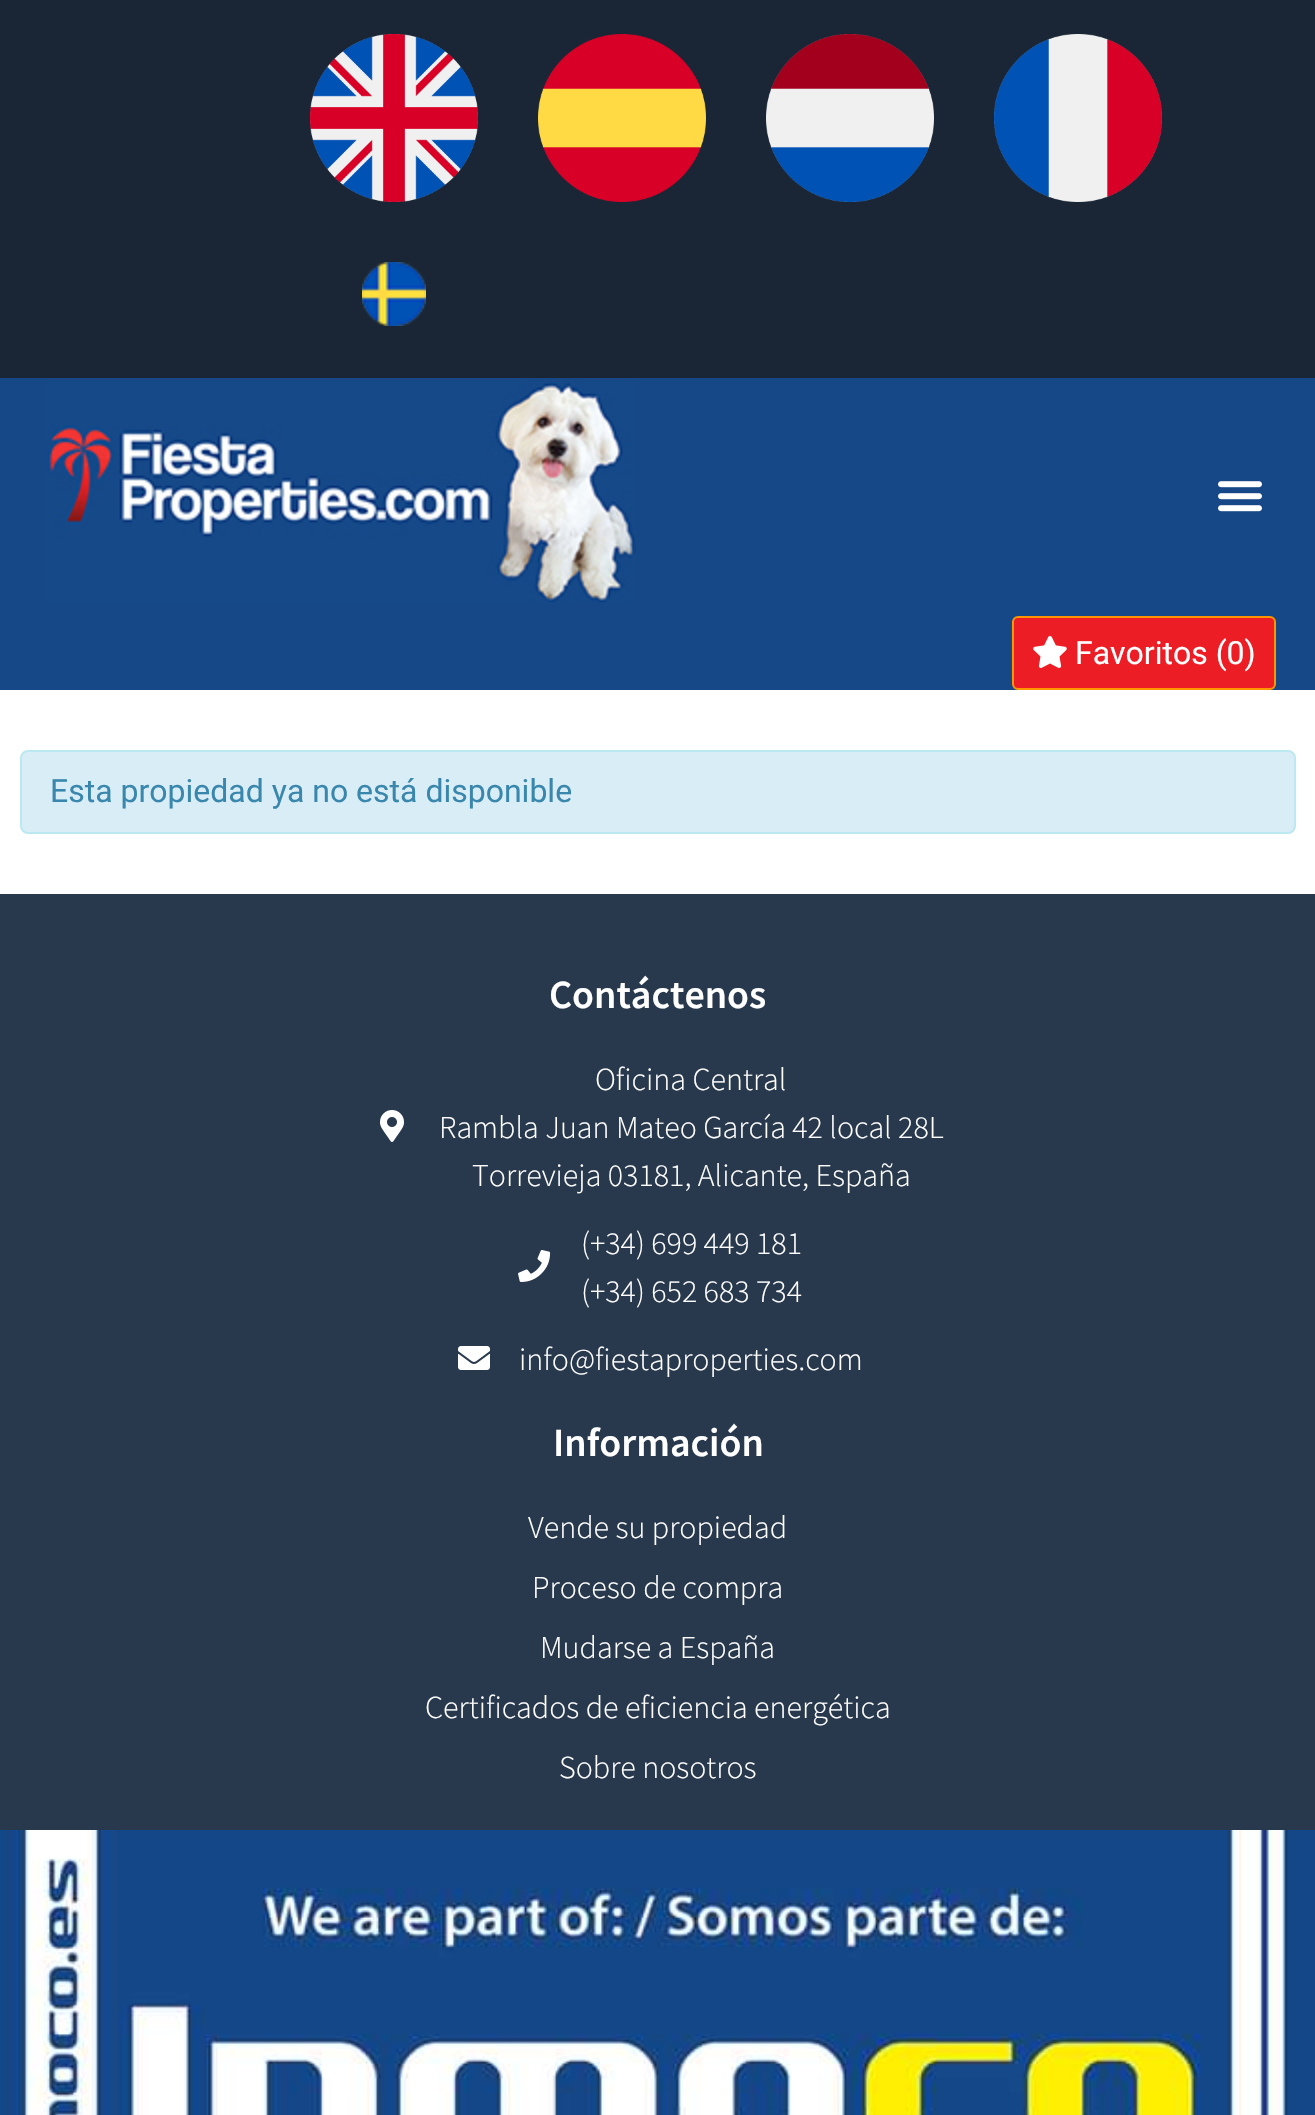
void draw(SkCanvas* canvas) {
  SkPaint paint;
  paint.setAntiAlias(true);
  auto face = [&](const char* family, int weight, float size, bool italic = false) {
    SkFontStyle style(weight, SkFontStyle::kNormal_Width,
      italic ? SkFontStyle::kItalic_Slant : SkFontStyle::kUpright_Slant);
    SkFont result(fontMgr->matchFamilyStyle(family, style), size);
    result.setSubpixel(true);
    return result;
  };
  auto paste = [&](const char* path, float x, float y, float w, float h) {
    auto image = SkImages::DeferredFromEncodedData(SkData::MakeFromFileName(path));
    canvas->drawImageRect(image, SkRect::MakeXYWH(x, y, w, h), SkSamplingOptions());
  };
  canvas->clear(0xffffffff);
  paint.setColor(0xff1a2635);
  canvas->drawRect(SkRect::MakeXYWH(0, 0, 1315, 378), paint);
  paste("img/1.png", 310, 34, 168, 168);
  paste("img/2.png", 538, 34, 168, 168);
  paste("img/3.png", 766, 34, 168, 168);
  paste("img/4.png", 994, 34, 168, 168);
  paste("img/5.png", 362, 262, 64, 64);
  paint.setColor(0xff164888);
  canvas->drawRect(SkRect::MakeXYWH(0, 378, 1315, 312), paint);
  paste("img/6.png", 47, 382, 589, 221);
  paste("img/7.png", 1218, 481, 44, 31);
  paint.setColor(0xffec1d25);
  canvas->drawRoundRect(SkRect::MakeXYWH(1013, 617, 262, 72), 5, 5, paint);
  paint.setStroke(true);
  paint.setStrokeWidth(2);
  paint.setColor(0xffff9600);
  canvas->drawRoundRect(SkRect::MakeXYWH(1013, 617, 262, 72), 5, 5, paint);
  paste("img/8.png", 1033, 636, 34, 32);
  paint.setStroke(false);
  paint.setColor(0xffd9edf7);
  canvas->drawRoundRect(SkRect::MakeXYWH(21, 751, 1274, 82), 7, 7, paint);
  paint.setStroke(true);
  paint.setColor(0xffbce8f1);
  canvas->drawRoundRect(SkRect::MakeXYWH(21, 751, 1274, 82), 7, 7, paint);
  paint.setStroke(false);
  paint.setColor(0xff28384d);
  canvas->drawRect(SkRect::MakeXYWH(0, 894, 1315, 936), paint);
  paste("img/9.png", 380, 1110, 24, 32);
  paste("img/10.png", 518, 1250, 33, 32);
  paste("img/11.png", 458, 1346, 32, 24);
  paste("img/12.png", 0, 1830, 1315, 285);
  auto f0 = face("Roboto", 400, 32);
  paint.setColor(0xffffffff);
  canvas->drawString("Favoritos (0)", 1075, 664, f0, paint);
  paint.setColor(0xff3a87ad);
  canvas->drawString("Esta propiedad ya no está disponible", 50, 802, f0, paint);
  auto f1 = face("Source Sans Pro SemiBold", 600, 40);
  paint.setColor(0xffffffff);
  canvas->drawString("Contáctenos", 549, 1008, f1, paint);
  auto f2 = face("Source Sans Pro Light", 300, 32);
  {
    const struct { const char* s; float x, y; } items[] = {
      {"Oficina Central", 595, 1090},
      {"Rambla Juan Mateo García 42 local 28L", 439, 1138},
      {"Torrevieja 03181, Alicante, España", 472, 1186},
      {"(+34) 699 449 181", 581, 1254},
      {"(+34) 652 683 734", 581, 1302},
      {"info@fiestaproperties.com", 519, 1370},
    };
    for (auto [s, x, y] : items) {
      canvas->drawString(s, x, y, f2, paint);
    }
  }
  canvas->drawString("Información", 553, 1456, f1, paint);
  {
    const struct { const char* s; float x, y; } items[] = {
      {"Vende su propiedad", 528, 1538},
      {"Proceso de compra", 532, 1598},
      {"Mudarse a España", 540, 1658},
      {"Certificados de eficiencia energética", 425, 1718},
      {"Sobre nosotros", 559, 1778},
    };
    for (auto [s, x, y] : items) {
      canvas->drawString(s, x, y, f2, paint);
    }
  }
}
